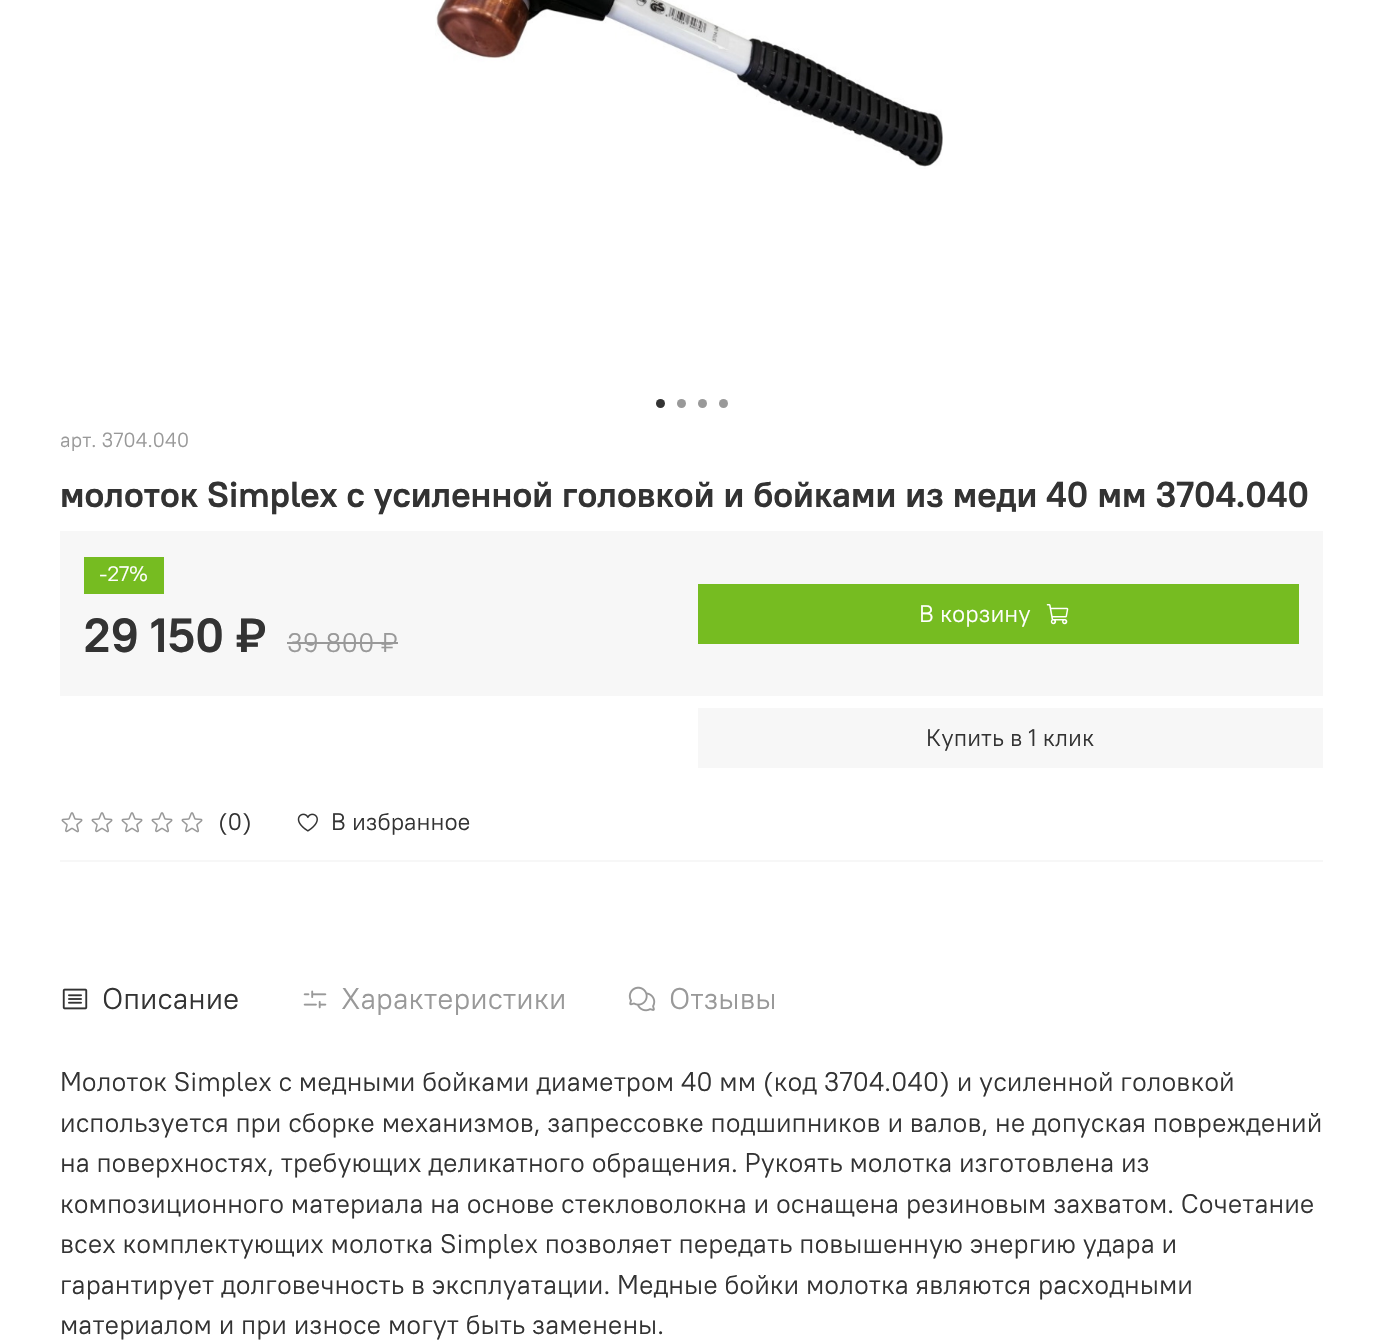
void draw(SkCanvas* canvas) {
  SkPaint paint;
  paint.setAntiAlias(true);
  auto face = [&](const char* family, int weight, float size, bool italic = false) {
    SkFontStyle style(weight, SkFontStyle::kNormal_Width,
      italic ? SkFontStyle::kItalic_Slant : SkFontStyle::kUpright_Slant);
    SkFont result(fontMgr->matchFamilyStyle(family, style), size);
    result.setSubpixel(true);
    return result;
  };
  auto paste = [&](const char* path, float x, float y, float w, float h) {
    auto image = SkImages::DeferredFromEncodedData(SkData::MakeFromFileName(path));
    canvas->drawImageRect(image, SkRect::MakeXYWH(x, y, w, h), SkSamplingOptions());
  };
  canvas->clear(0xffffffff);
  paste("img/1.png", 435, 0, 508, 169);
  paint.setColor(0xff333333);
  canvas->drawCircle(660.5f, 403.5f, 4.5f, paint);
  paint.setColor(0xff999999);
  canvas->drawCircle(681.5f, 403.5f, 4.5f, paint);
  canvas->drawCircle(702.5f, 403.5f, 4.5f, paint);
  canvas->drawCircle(723.5f, 403.5f, 4.5f, paint);
  {
    const struct { float x, y, w, h; SkColor color; } items[] = {
      {60, 531, 1263, 165, 0xfff7f7f7},
      {84, 557, 80, 37, 0xff76bc21},
      {287, 642, 111, 2, 0xff999999},
      {698, 584, 601, 60, 0xff76bc21},
    };
    for (auto [x, y, w, h, color] : items) {
      paint.setColor(color);
      canvas->drawRect(SkRect::MakeXYWH(x, y, w, h), paint);
    }
  }
  paste("img/2.png", 1046, 604, 23, 21);
  paint.setColor(0xfff7f7f7);
  canvas->drawRect(SkRect::MakeXYWH(698, 708, 625, 60), paint);
  canvas->drawRect(SkRect::MakeXYWH(60, 860, 1263, 2), paint);
  paste("img/3.png", 61, 812, 22, 21);
  paste("img/3.png", 91, 812, 22, 21);
  paste("img/3.png", 121, 812, 22, 21);
  paste("img/3.png", 151, 812, 22, 21);
  paste("img/3.png", 181, 812, 22, 21);
  paste("img/4.png", 297, 813, 21, 19);
  paste("img/5.png", 62, 988, 26, 22);
  paste("img/6.png", 303, 990, 24, 19);
  paste("img/7.png", 628, 986, 28, 26);
  auto f0 = face("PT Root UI", 400, 20.5f);
  paint.setColor(0xff999999);
  canvas->drawString("арт. 3704.040", 60, 447, f0, paint);
  auto f1 = face("PT Root UI", 700, 36);
  paint.setColor(0xff333333);
  canvas->drawString("молоток Simplex с усиленной головкой и бойками из меди 40 мм 3704.040", 60, 507, f1, paint);
  auto f2 = face("PT Root UI", 400, 21);
  paint.setColor(0xffffffff);
  canvas->drawString("-27%", 99, 581, f2, paint);
  auto f3 = face("PT Root UI", 700, 48);
  paint.setColor(0xff333333);
  canvas->drawString("29 150 ₽", 84, 652, f3, paint);
  auto f4 = face("PT Root UI", 400, 27);
  paint.setColor(0xff999999);
  canvas->drawString("39 800 ₽", 287, 652, f4, paint);
  auto f5 = face("PT Root UI", 400, 24);
  paint.setColor(0xffffffff);
  canvas->drawString("В корзину", 919, 622, f5, paint);
  paint.setColor(0xff333333);
  {
    const struct { const char* s; float x, y; } items[] = {
      {"Купить в 1 клик", 926, 746},
      {"(0)", 218, 830},
      {"В избранное", 331, 830},
    };
    for (auto [s, x, y] : items) {
      canvas->drawString(s, x, y, f5, paint);
    }
  }
  auto f6 = face("PT Root UI", 400, 30);
  canvas->drawString("Описание", 102, 1009, f6, paint);
  paint.setColor(0xff999999);
  canvas->drawString("Характеристики", 341, 1009, f6, paint);
  canvas->drawString("Отзывы", 669, 1009, f6, paint);
  paint.setColor(0xff333333);
  {
    const struct { const char* s; float x, y; } items[] = {
      {"Молоток Simplex с медными бойками диаметром 40 мм (код 3704.040) и усиленной головкой", 60, 1091},
      {"используется при сборке механизмов, запрессовке подшипников и валов, не допуская повреждений", 60, 1132},
      {"на поверхностях, требующих деликатного обращения. Рукоять молотка изготовлена из", 60, 1172},
      {"композиционного материала на основе стекловолокна и оснащена резиновым захватом. Сочетание", 60, 1213},
      {"всех комплектующих молотка Simplex позволяет передать повышенную энергию удара и", 60, 1253},
      {"гарантирует долговечность в эксплуатации. Медные бойки молотка являются расходными", 60, 1294},
      {"материалом и при износе могут быть заменены.", 60, 1334},
    };
    for (auto [s, x, y] : items) {
      canvas->drawString(s, x, y, f4, paint);
    }
  }
}
